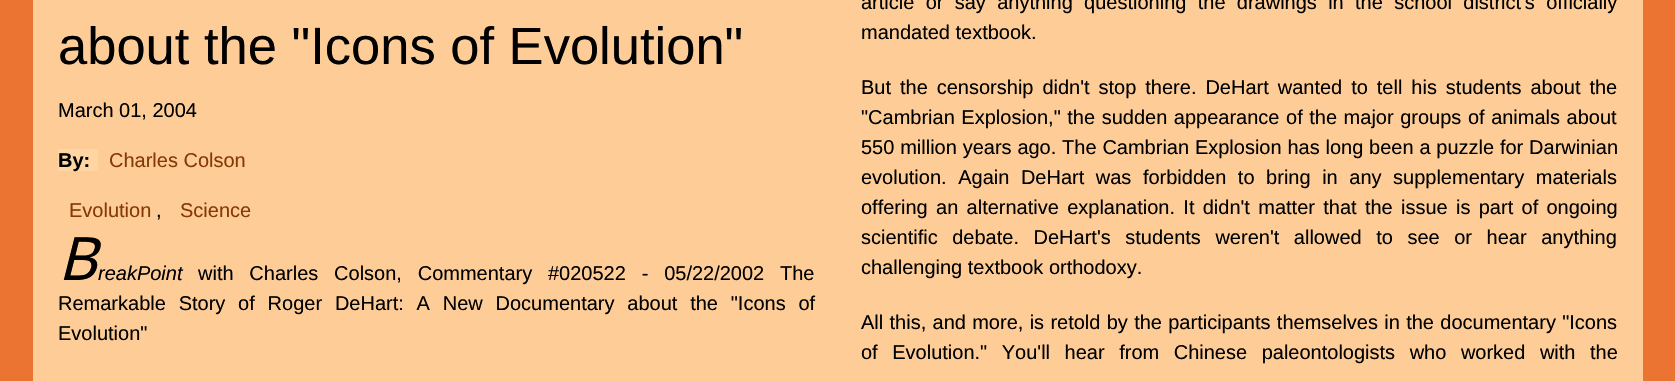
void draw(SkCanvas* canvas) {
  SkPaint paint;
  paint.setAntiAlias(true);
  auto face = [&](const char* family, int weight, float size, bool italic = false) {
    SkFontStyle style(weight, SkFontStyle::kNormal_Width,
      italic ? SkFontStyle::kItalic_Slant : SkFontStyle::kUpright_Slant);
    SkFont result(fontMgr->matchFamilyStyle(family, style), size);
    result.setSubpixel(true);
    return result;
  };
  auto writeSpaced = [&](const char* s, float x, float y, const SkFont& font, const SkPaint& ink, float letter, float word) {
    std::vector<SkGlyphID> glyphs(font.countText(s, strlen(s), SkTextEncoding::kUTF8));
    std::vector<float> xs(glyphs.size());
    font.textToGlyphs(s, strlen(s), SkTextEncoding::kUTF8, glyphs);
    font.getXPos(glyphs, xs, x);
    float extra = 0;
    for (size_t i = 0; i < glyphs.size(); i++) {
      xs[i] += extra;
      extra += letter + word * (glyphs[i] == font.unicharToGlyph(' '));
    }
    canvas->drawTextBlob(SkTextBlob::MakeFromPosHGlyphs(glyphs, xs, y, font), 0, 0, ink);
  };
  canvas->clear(0xffeb7433);
  paint.setColor(0xe0ffd7a4);
  canvas->drawRect(SkRect::MakeXYWH(33, 0, 1610, 381), paint);
  paint.setColor(0xffffd6a2);
  canvas->drawRect(SkRect::MakeXYWH(58, 149, 40, 22), paint);
  auto f0 = face("Liberation Sans", 400, 20);
  paint.setColor(0xff000000);
  writeSpaced("article or say anything questioning the drawings in the school district's officially", 861, 9, f0, paint, 0, 5.75f);
  canvas->drawString("mandated textbook.", 861, 39, f0, paint);
  auto f1 = face("Noto Sans", 400, 60, true);
  canvas->drawString("B", 58, 280, f1, paint);
  auto f2 = face("Liberation Sans", 400, 20, true);
  canvas->drawString("reakPoint", 98, 280, f2, paint);
  writeSpaced("with Charles Colson, Commentary #020522 - 05/22/2002 The", 198, 280, f0, paint, 0, 10.25f);
  writeSpaced("Remarkable Story of Roger DeHart: A New Documentary about the \"Icons of", 58, 310, f0, paint, 0, 7.25f);
  canvas->drawString("Evolution\"", 58, 340, f0, paint);
  writeSpaced("But the censorship didn't stop there. DeHart wanted to tell his students about the", 861, 94, f0, paint, 0, 3.4f);
  writeSpaced("\"Cambrian Explosion,\" the sudden appearance of the major groups of animals about", 861, 124, f0, paint, 0, 1);
  writeSpaced("550 million years ago. The Cambrian Explosion has long been a puzzle for Darwinian", 861, 154, f0, paint, 0, 0.25f);
  writeSpaced("evolution. Again DeHart was forbidden to bring in any supplementary materials", 861, 184, f0, paint, 0, 6);
  writeSpaced("offering an alternative explanation. It didn't matter that the issue is part of ongoing", 861, 214, f0, paint, 0, 2.75f);
  writeSpaced("scientific debate. DeHart's students weren't allowed to see or hear anything", 861, 244, f0, paint, 0, 9);
  canvas->drawString("challenging textbook orthodoxy.", 861, 274, f0, paint);
  writeSpaced("All this, and more, is retold by the participants themselves in the documentary \"Icons", 861, 329, f0, paint, 0, 0.75f);
  writeSpaced("of Evolution.\" You'll hear from Chinese paleontologists who worked with the", 861, 359, f0, paint, 0, 9);
  canvas->drawString("March 01, 2004", 58, 117, f0, paint);
  auto f3 = face("Liberation Sans", 700, 20);
  canvas->drawString("By:", 58, 167, f3, paint);
  paint.setColor(0xff863907);
  canvas->drawString("Charles Colson", 109, 167, f0, paint);
  canvas->drawString("Evolution", 69, 217, f0, paint);
  paint.setColor(0xff000000);
  canvas->drawString(",", 156, 217, f0, paint);
  paint.setColor(0xff863907);
  canvas->drawString("Science", 180, 217, f0, paint);
  auto f4 = face("Liberation Sans", 400, 52.5f);
  paint.setColor(0xff000000);
  canvas->drawString("about the \"Icons of Evolution\"", 58, 64, f4, paint);
}
